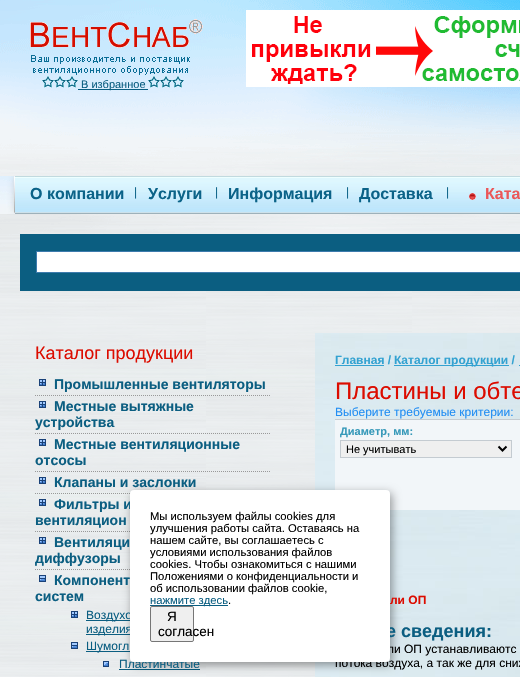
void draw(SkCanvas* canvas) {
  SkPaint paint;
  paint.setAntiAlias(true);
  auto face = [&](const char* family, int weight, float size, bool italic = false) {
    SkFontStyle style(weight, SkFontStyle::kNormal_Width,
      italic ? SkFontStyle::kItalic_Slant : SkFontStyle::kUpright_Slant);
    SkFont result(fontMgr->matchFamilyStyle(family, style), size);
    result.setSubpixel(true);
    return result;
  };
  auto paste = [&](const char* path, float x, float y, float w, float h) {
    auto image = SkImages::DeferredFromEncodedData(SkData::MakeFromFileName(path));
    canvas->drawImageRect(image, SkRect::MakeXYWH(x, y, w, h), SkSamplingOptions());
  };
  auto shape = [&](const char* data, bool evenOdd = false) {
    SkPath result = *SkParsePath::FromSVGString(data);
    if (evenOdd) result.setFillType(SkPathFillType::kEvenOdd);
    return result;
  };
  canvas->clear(0xffffffff);
  paste("img/1.png", 0, 251, 520, 426);
  paste("img/2.png", 0, 0, 520, 251);
  paste("img/3.png", 30, 19, 173, 56);
  paste("img/4.png", 42, 76, 12, 12);
  paste("img/5.png", 54, 76, 12, 12);
  paste("img/6.png", 66, 76, 12, 12);
  paint.setColor(0xff0b5e81);
  canvas->drawRect(SkRect::MakeXYWH(78, 89, 70, 1), paint);
  paste("img/7.png", 148, 76, 12, 12);
  paste("img/8.png", 160, 76, 12, 12);
  paste("img/9.png", 172, 76, 12, 12);
  paste("img/10.png", 246, 10, 274, 77);
  paste("img/11.png", 15, 176, 505, 38);
  paste("img/12.png", 0, 176, 15, 38);
  paste("img/13.png", 469, 193, 7, 7);
  canvas->drawRect(SkRect::MakeXYWH(20, 234, 500, 57), paint);
  paint.setColor(0xffffffff);
  canvas->drawRect(SkRect::MakeXYWH(36.5f, 251.5f, 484, 21), paint);
  paint.setStroke(true);
  paint.setStrokeWidth(1);
  paint.setColor(0xff3d7bad);
  canvas->drawRect(SkRect::MakeXYWH(36.5f, 251.5f, 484, 21), paint);
  paint.setColor(0xff999999);
  paint.setPathEffect(SkDashPathEffect::Make({{1, 1}}, 0));
  canvas->drawPath(shape("M35 395.5H270"), paint);
  paint.setPathEffect(nullptr);
  paste("img/14.png", 39, 379, 7, 7);
  paint.setPathEffect(SkDashPathEffect::Make({{1, 1}}, 0));
  canvas->drawPath(shape("M35 433.5H270"), paint);
  paint.setPathEffect(nullptr);
  paste("img/14.png", 39, 401, 7, 7);
  paint.setPathEffect(SkDashPathEffect::Make({{1, 1}}, 0));
  canvas->drawPath(shape("M35 471.5H270"), paint);
  paint.setPathEffect(nullptr);
  paste("img/14.png", 39, 439, 7, 7);
  paint.setPathEffect(SkDashPathEffect::Make({{1, 1}}, 0));
  canvas->drawPath(shape("M35 493.5H270"), paint);
  paint.setPathEffect(nullptr);
  paste("img/14.png", 39, 477, 7, 7);
  paint.setPathEffect(SkDashPathEffect::Make({{1, 1}}, 0));
  canvas->drawPath(shape("M35 531.5H270"), paint);
  paint.setPathEffect(nullptr);
  paste("img/14.png", 39, 499, 7, 7);
  paint.setPathEffect(SkDashPathEffect::Make({{1, 1}}, 0));
  canvas->drawPath(shape("M35 569.5H270"), paint);
  paint.setPathEffect(nullptr);
  paste("img/14.png", 39, 537, 7, 7);
  paste("img/15.png", 39, 575, 7, 7);
  paste("img/14.png", 71, 611, 7, 7);
  paint.setStroke(false);
  paint.setColor(0xff0b5e81);
  canvas->drawRect(SkRect::MakeXYWH(86, 620, 44, 1), paint);
  canvas->drawRect(SkRect::MakeXYWH(86, 634, 46, 1), paint);
  paste("img/15.png", 71, 642, 7, 7);
  canvas->drawRect(SkRect::MakeXYWH(86, 651, 44, 1), paint);
  paste("img/16.png", 103, 661, 6, 6);
  canvas->drawRect(SkRect::MakeXYWH(119, 669, 81, 1), paint);
  paste("img/17.png", 315, 333, 205, 344);
  {
    const struct { float x, y, w, h; SkColor color; } items[] = {
      {335, 365, 49, 1, 0xff33a2d1},
      {394, 365, 115, 1, 0xff33a2d1},
      {519, 365, 1, 1, 0xff33a2d1},
      {335, 420, 185, 90, 0xfff2f6f9},
      {335, 419, 185, 1, 0xffc4cbd1},
    };
    for (auto [x, y, w, h, color] : items) {
      paint.setColor(color);
      canvas->drawRect(SkRect::MakeXYWH(x, y, w, h), paint);
    }
  }
  paint.setColor(0xffefefef);
  canvas->drawRect(SkRect::MakeXYWH(340.5f, 440.5f, 171, 17), paint);
  paint.setStroke(true);
  paint.setColor(0xffc4cbd1);
  canvas->drawRect(SkRect::MakeXYWH(340.5f, 440.5f, 171, 17), paint);
  paint.setStrokeWidth(2);
  paint.setColor(0xff000000);
  canvas->drawPath(shape("M498.5 446.5L502.5 450.5L506.5 446.5"), paint);
  paint.setStroke(false);
  paint.setColor(0x66000000);
  paint.setMaskFilter(SkMaskFilter::MakeBlur(kNormal_SkBlurStyle, 5));
  canvas->drawRoundRect(SkRect::MakeXYWH(132, 493, 260, 172), 4, 4, paint);
  paint.setMaskFilter(nullptr);
  auto f0 = face("Liberation Sans", 400, 11);
  paint.setColor(0xff0b5e81);
  canvas->drawString("В избранное", 81, 88, f0, paint);
  auto f1 = face("Liberation Sans", 700, 16);
  paint.setColor(0xff0b6388);
  canvas->drawString("О компании", 30, 199, f1, paint);
  auto f2 = face("Liberation Sans", 400, 12);
  canvas->drawString("|", 134, 196, f2, paint);
  canvas->drawString("Услуги", 148, 199, f1, paint);
  canvas->drawString("|", 215, 196, f2, paint);
  canvas->drawString("Информация", 228, 199, f1, paint);
  canvas->drawString("|", 346, 196, f2, paint);
  canvas->drawString("Доставка", 359, 199, f1, paint);
  canvas->drawString("|", 446, 196, f2, paint);
  paint.setColor(0xffeb5758);
  canvas->drawString("Ката", 485, 199, f1, paint);
  auto f3 = face("Liberation Sans", 400, 18);
  paint.setColor(0xffdc0c00);
  canvas->drawString("Каталог продукции", 35, 359, f3, paint);
  auto f4 = face("Liberation Sans", 700, 14);
  paint.setColor(0xff0b5e81);
  {
    const struct { const char* s; float x, y; } items[] = {
      {"Промышленные вентиляторы", 54, 389},
      {"Местные вытяжные", 54, 411},
      {"устройства", 35, 427},
      {"Местные вентиляционные", 54, 449},
      {"отсосы", 35, 465},
      {"Клапаны и заслонки", 54, 487},
      {"Фильтры и", 54, 509},
      {"вентиляцион", 35, 525},
      {"Вентиляци", 54, 547},
      {"диффузоры", 35, 563},
      {"Компонент", 54, 585},
      {"систем", 35, 601},
    };
    for (auto [s, x, y] : items) {
      canvas->drawString(s, x, y, f4, paint);
    }
  }
  {
    const struct { const char* s; float x, y; } items[] = {
      {"Воздухо", 86, 619},
      {"изделия", 86, 633},
      {"Шумогл", 86, 650},
      {"Пластинчатые", 119, 668},
    };
    for (auto [s, x, y] : items) {
      canvas->drawString(s, x, y, f2, paint);
    }
  }
  auto f5 = face("Liberation Sans", 700, 12);
  paint.setColor(0xff33a2d1);
  canvas->drawString("Главная /", 335, 364, f5, paint);
  canvas->drawString("Каталог продукции /", 394, 364, f5, paint);
  auto f6 = face("Liberation Sans", 400, 24);
  paint.setColor(0xffdc0c00);
  canvas->drawString("Пластины и обте", 335, 399, f6, paint);
  paint.setColor(0xff228ef3);
  canvas->drawString("Выберите требуемые критерии:", 335, 416, f2, paint);
  auto f7 = face("Liberation Sans", 700, 11);
  paint.setColor(0xff3699b9);
  canvas->drawString("Диаметр, мм:", 340, 435, f7, paint);
  paint.setColor(0xff000000);
  canvas->drawString("Не учитывать", 346, 453, f0, paint);
  paint.setColor(0xffdc0c00);
  canvas->drawString("ли ОП", 390, 604, f5, paint);
  auto f8 = face("Liberation Sans", 700, 18);
  paint.setColor(0xff0b5e81);
  canvas->drawString("е сведения:", 386, 637, f8, paint);
  paint.setColor(0xff000000);
  canvas->drawString("ли ОП устанавливаютс", 387, 653, f2, paint);
  canvas->drawString("потока воздуха, а так же для сниж", 335, 667, f2, paint);
  paint.setColor(0xffffffff);
  canvas->drawRoundRect(SkRect::MakeXYWH(130, 490, 260, 172), 4, 4, paint);
  auto f9 = face("Liberation Sans", 400, 11.25f);
  paint.setColor(0xff000000);
  {
    const struct { const char* s; float x, y; } items[] = {
      {"Мы используем файлы cookies для", 150, 520},
      {"улучшения работы сайта. Оставаясь на", 150, 532},
      {"нашем сайте, вы соглашаетесь с", 150, 544},
      {"условиями использования файлов", 150, 556},
      {"cookies. Чтобы ознакомиться с нашими", 150, 568},
      {"Положениями о конфиденциальности и", 150, 580},
      {"об использовании файлов cookie,", 150, 592},
    };
    for (auto [s, x, y] : items) {
      canvas->drawString(s, x, y, f9, paint);
    }
  }
  paint.setColor(0xff0b5e81);
  canvas->drawRect(SkRect::MakeXYWH(150, 605, 78, 1), paint);
  canvas->drawString("нажмите здесь", 150, 604, f9, paint);
  paint.setColor(0xff000000);
  canvas->drawString(".", 228, 604, f9, paint);
  paint.setColor(0xffefefef);
  canvas->drawRoundRect(SkRect::MakeXYWH(150.5f, 606.5f, 43, 35), 1.5f, 1.5f, paint);
  paint.setStroke(true);
  paint.setStrokeWidth(1);
  paint.setColor(0xff767676);
  canvas->drawRoundRect(SkRect::MakeXYWH(150.5f, 606.5f, 43, 35), 1.5f, 1.5f, paint);
  auto f10 = face("Liberation Sans", 400, 13.5f);
  paint.setStroke(false);
  paint.setColor(0xff000000);
  canvas->drawString("Я", 167, 621, f10, paint);
  canvas->drawString("согласен", 158, 636, f10, paint);
}
